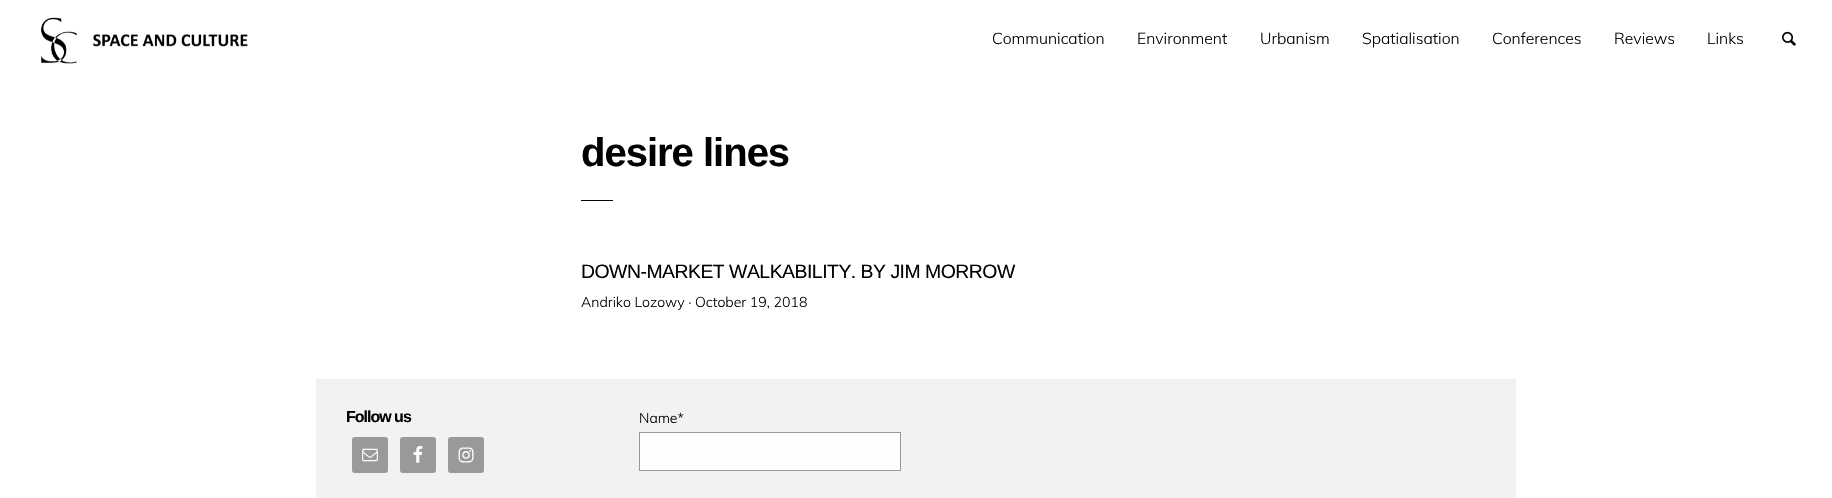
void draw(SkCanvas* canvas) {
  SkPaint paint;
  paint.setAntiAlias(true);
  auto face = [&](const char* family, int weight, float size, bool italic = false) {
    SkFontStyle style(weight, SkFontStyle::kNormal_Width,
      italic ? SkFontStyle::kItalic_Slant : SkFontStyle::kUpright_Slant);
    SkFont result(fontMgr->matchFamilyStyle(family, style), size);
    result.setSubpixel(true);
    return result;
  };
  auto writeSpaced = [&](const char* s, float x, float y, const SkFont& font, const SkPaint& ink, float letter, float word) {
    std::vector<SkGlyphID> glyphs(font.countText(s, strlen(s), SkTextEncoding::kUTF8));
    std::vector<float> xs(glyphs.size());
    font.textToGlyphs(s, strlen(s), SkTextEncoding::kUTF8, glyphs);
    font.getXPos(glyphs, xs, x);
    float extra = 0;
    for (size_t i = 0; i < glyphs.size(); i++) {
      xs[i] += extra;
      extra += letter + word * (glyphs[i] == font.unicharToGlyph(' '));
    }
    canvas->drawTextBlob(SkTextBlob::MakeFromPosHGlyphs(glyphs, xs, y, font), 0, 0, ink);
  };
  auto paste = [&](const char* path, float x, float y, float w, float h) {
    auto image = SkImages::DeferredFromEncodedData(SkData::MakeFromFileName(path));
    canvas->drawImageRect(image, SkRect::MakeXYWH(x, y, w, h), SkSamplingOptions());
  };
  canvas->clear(0xffffffff);
  paste("img/1.png", 41, 17, 207, 47);
  paste("img/2.png", 1782, 31, 14, 15);
  paint.setColor(0xff000000);
  canvas->drawRect(SkRect::MakeXYWH(581, 200, 32, 1), paint);
  paint.setColor(0xfff2f2f2);
  canvas->drawRect(SkRect::MakeXYWH(316, 379, 1200, 119), paint);
  paint.setColor(0xff999999);
  canvas->drawRoundRect(SkRect::MakeXYWH(352, 437, 36, 36), 3, 3, paint);
  paste("img/3.png", 362, 448, 16, 14);
  canvas->drawRoundRect(SkRect::MakeXYWH(400, 437, 36, 36), 3, 3, paint);
  paste("img/4.png", 413, 446, 10, 17);
  canvas->drawRoundRect(SkRect::MakeXYWH(448, 437, 36, 36), 3, 3, paint);
  paste("img/5.png", 458, 447, 16, 16);
  paint.setColor(0xfffefefe);
  canvas->drawRect(SkRect::MakeXYWH(639.5f, 432.5f, 261, 38), paint);
  paint.setStroke(true);
  paint.setStrokeWidth(1);
  paint.setColor(0xff999999);
  canvas->drawRect(SkRect::MakeXYWH(639.5f, 432.5f, 261, 38), paint);
  auto f0 = face("Muli", 300, 15.75f);
  paint.setStroke(false);
  paint.setColor(0xff000000);
  {
    const struct { const char* s; float x, y; } items[] = {
      {"Communication", 992, 44},
      {"Environment", 1137, 44},
      {"Urbanism", 1260, 44},
      {"Spatialisation", 1362, 44},
      {"Conferences", 1492, 44},
      {"Reviews", 1614, 44},
      {"Links", 1707, 44},
    };
    for (auto [s, x, y] : items) {
      canvas->drawString(s, x, y, f0, paint);
    }
  }
  auto f1 = face("Liberation Sans", 700, 40);
  writeSpaced("desire lines", 581, 166, f1, paint, -1, 0);
  auto f2 = face("Liberation Sans", 400, 19.4f);
  writeSpaced("DOWN-MARKET WALKABILITY. BY JIM MORROW", 581, 278, f2, paint, -0.5f, 0);
  auto f3 = face("Muli", 300, 14.1f);
  canvas->drawString("Andriko Lozowy · October 19, 2018", 581, 307, f3, paint);
  auto f4 = face("Liberation Sans", 700, 16);
  writeSpaced("Follow us", 346, 422, f4, paint, -1, 0);
  auto f5 = face("Muli", 300, 14);
  canvas->drawString("Name*", 639, 423, f5, paint);
}
